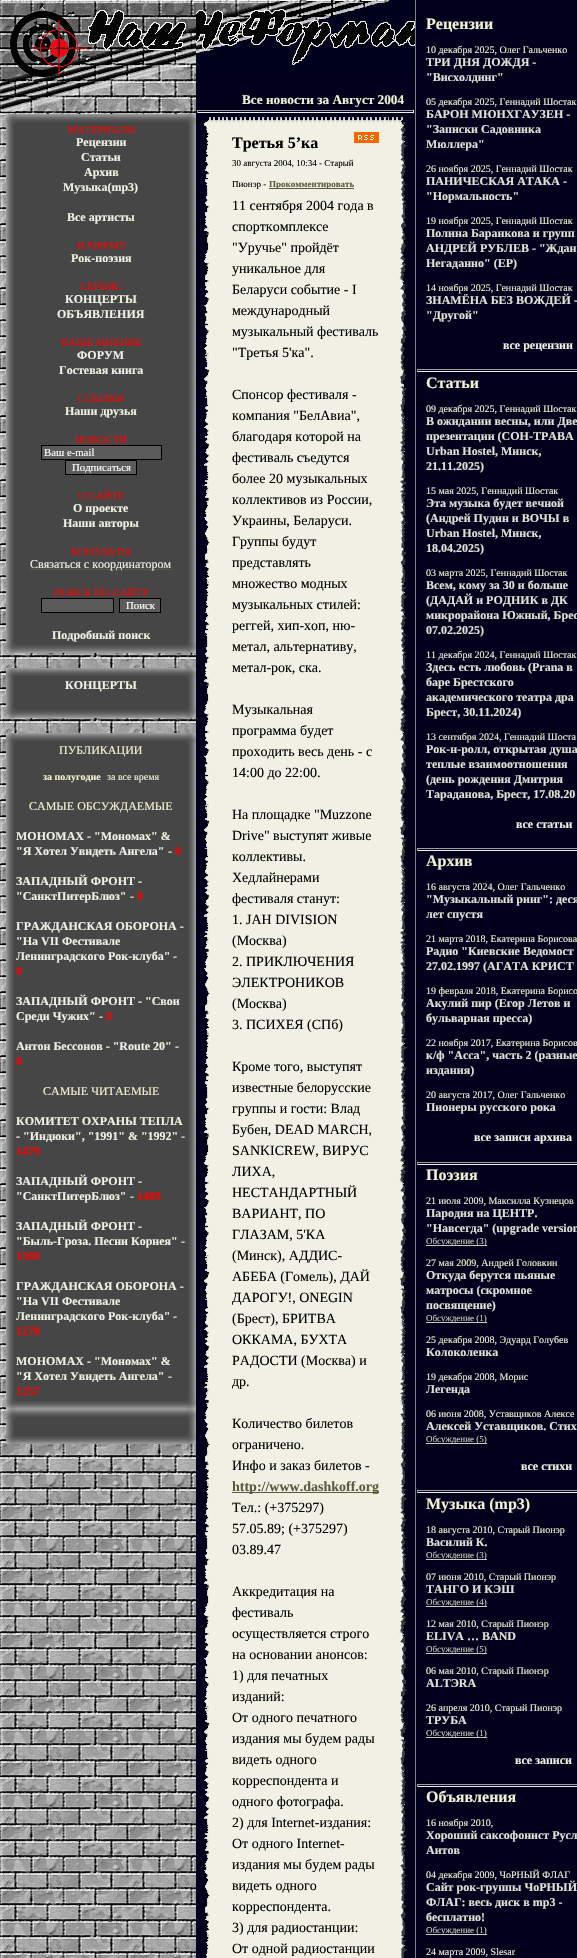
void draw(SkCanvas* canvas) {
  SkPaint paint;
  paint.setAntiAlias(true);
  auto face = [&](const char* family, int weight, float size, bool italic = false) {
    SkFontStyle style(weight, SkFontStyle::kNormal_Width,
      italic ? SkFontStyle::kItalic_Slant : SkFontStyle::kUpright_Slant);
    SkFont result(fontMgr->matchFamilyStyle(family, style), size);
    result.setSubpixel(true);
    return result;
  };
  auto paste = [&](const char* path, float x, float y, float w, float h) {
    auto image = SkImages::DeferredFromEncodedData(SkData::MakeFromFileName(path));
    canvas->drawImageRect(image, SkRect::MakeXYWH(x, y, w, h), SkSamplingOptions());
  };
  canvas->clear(0xff00001c);
  paste("img/1.png", 0, 112, 196, 1846);
  paste("img/2.png", 0, 0, 196, 112);
  paste("img/3.png", 6, 114, 10, 10);
  paint.setColor(0xff464646);
  canvas->drawRect(SkRect::MakeXYWH(16, 122, 170, 2), paint);
  paste("img/4.png", 16, 114, 170, 8);
  paste("img/5.png", 186, 114, 10, 10);
  canvas->drawRect(SkRect::MakeXYWH(14, 124, 174, 519), paint);
  paste("img/6.png", 6, 124, 8, 519);
  paste("img/7.png", 188, 124, 8, 519);
  paint.setColor(0xff5b5b5b);
  canvas->drawRect(SkRect::MakeXYWH(41.5f, 445.5f, 120, 14), paint);
  paint.setStroke(true);
  paint.setStrokeWidth(1);
  paint.setColor(0xff000000);
  canvas->drawRect(SkRect::MakeXYWH(41.5f, 445.5f, 120, 14), paint);
  paint.setStroke(false);
  paint.setColor(0xff5b5b5b);
  canvas->drawRect(SkRect::MakeXYWH(65.5f, 460.5f, 71, 14), paint);
  paint.setStroke(true);
  paint.setColor(0xff000000);
  canvas->drawRect(SkRect::MakeXYWH(65.5f, 460.5f, 71, 14), paint);
  paint.setStroke(false);
  paint.setColor(0xff5a5a3e);
  canvas->drawRect(SkRect::MakeXYWH(30, 569, 142, 1), paint);
  paint.setColor(0xff5b5b5b);
  canvas->drawRect(SkRect::MakeXYWH(41.5f, 598.5f, 72, 14), paint);
  paint.setStroke(true);
  paint.setColor(0xff000000);
  canvas->drawRect(SkRect::MakeXYWH(41.5f, 598.5f, 72, 14), paint);
  paint.setStroke(false);
  paint.setColor(0xff5b5b5b);
  canvas->drawRect(SkRect::MakeXYWH(119.5f, 598.5f, 41, 14), paint);
  paint.setStroke(true);
  paint.setColor(0xff000000);
  canvas->drawRect(SkRect::MakeXYWH(119.5f, 598.5f, 41, 14), paint);
  paste("img/8.png", 6, 643, 10, 10);
  paint.setStroke(false);
  paint.setColor(0xff464646);
  canvas->drawRect(SkRect::MakeXYWH(16, 643, 170, 2), paint);
  paste("img/9.png", 16, 645, 170, 8);
  paste("img/10.png", 186, 643, 10, 10);
  paste("img/3.png", 6, 668, 10, 10);
  canvas->drawRect(SkRect::MakeXYWH(16, 676, 170, 2), paint);
  paste("img/4.png", 16, 668, 170, 8);
  paste("img/5.png", 186, 668, 10, 10);
  canvas->drawRect(SkRect::MakeXYWH(14, 678, 174, 30), paint);
  paste("img/11.png", 6, 678, 8, 30);
  paste("img/12.png", 188, 678, 8, 30);
  paste("img/8.png", 6, 708, 10, 10);
  canvas->drawRect(SkRect::MakeXYWH(16, 708, 170, 2), paint);
  paste("img/9.png", 16, 710, 170, 8);
  paste("img/10.png", 186, 708, 10, 10);
  paste("img/3.png", 6, 733, 10, 10);
  canvas->drawRect(SkRect::MakeXYWH(16, 741, 170, 2), paint);
  paste("img/4.png", 16, 733, 170, 8);
  paste("img/5.png", 186, 733, 10, 10);
  canvas->drawRect(SkRect::MakeXYWH(14, 743, 174, 656), paint);
  paste("img/13.png", 6, 743, 8, 656);
  paste("img/14.png", 188, 743, 8, 656);
  paste("img/8.png", 6, 1399, 10, 10);
  canvas->drawRect(SkRect::MakeXYWH(16, 1399, 170, 2), paint);
  paste("img/9.png", 16, 1401, 170, 8);
  paste("img/10.png", 186, 1399, 10, 10);
  paste("img/3.png", 6, 1409, 10, 10);
  canvas->drawRect(SkRect::MakeXYWH(16, 1417, 170, 2), paint);
  paste("img/4.png", 16, 1409, 170, 8);
  paste("img/5.png", 186, 1409, 10, 10);
  canvas->drawRect(SkRect::MakeXYWH(14, 1419, 174, 15), paint);
  paste("img/15.png", 6, 1419, 8, 15);
  paste("img/16.png", 188, 1419, 8, 15);
  paste("img/8.png", 6, 1434, 10, 10);
  canvas->drawRect(SkRect::MakeXYWH(16, 1434, 170, 2), paint);
  paste("img/9.png", 16, 1436, 170, 8);
  paste("img/10.png", 186, 1434, 10, 10);
  paste("img/17.png", 196, 0, 219, 72);
  {
    const struct { float x, y, w, h; SkColor color; } items[] = {
      {197, 110, 217, 1, 0xff9f9f9f},
      {413, 110, 1, 3, 0xffeeeeee},
      {197, 112, 217, 1, 0xffeeeeee},
      {197, 110, 1, 3, 0xff9f9f9f},
    };
    for (auto [x, y, w, h, color] : items) {
      paint.setColor(color);
      canvas->drawRect(SkRect::MakeXYWH(x, y, w, h), paint);
    }
  }
  paste("img/18.png", 204, 117, 18, 15);
  paste("img/19.png", 222, 117, 167, 15);
  paste("img/20.png", 389, 117, 17, 15);
  paste("img/21.png", 204, 132, 18, 1826);
  paint.setColor(0xfff0f0e4);
  canvas->drawRect(SkRect::MakeXYWH(222, 132, 167, 1826), paint);
  paste("img/22.png", 354, 132, 25, 11);
  paint.setColor(0xff5a5a3e);
  canvas->drawRect(SkRect::MakeXYWH(269, 188, 85, 1), paint);
  canvas->drawRect(SkRect::MakeXYWH(232, 1492, 147, 1), paint);
  paste("img/23.png", 389, 132, 18, 1826);
  {
    const struct { float x, y, w, h; SkColor color; } items[] = {
      {415, 0, 1, 1958, 0xff808080},
      {417, 369, 160, 1, 0xff9f9f9f},
      {417, 371, 160, 1, 0xffeeeeee},
      {417, 369, 1, 3, 0xff9f9f9f},
      {417, 848, 160, 1, 0xff9f9f9f},
      {417, 850, 160, 1, 0xffeeeeee},
      {417, 848, 1, 3, 0xff9f9f9f},
      {417, 1162, 160, 1, 0xff9f9f9f},
      {417, 1164, 160, 1, 0xffeeeeee},
      {417, 1162, 1, 3, 0xff9f9f9f},
      {426, 1245, 61, 1, 0xffccccbb},
      {426, 1322, 61, 1, 0xffccccbb},
      {426, 1443, 61, 1, 0xffccccbb},
      {417, 1490, 160, 1, 0xff9f9f9f},
      {417, 1492, 160, 1, 0xffeeeeee},
      {417, 1490, 1, 3, 0xff9f9f9f},
      {426, 1559, 61, 1, 0xffccccbb},
      {426, 1606, 61, 1, 0xffccccbb},
      {426, 1653, 61, 1, 0xffccccbb},
      {426, 1737, 61, 1, 0xffccccbb},
      {417, 1784, 160, 1, 0xff9f9f9f},
      {417, 1786, 160, 1, 0xffeeeeee},
      {417, 1784, 1, 3, 0xff9f9f9f},
      {426, 1934, 61, 1, 0xffccccbb},
    };
    for (auto [x, y, w, h, color] : items) {
      paint.setColor(color);
      canvas->drawRect(SkRect::MakeXYWH(x, y, w, h), paint);
    }
  }
  auto f0 = face("Liberation Serif", 400, 10.75f);
  paint.setColor(0xffff0000);
  canvas->drawString("МАТЕРИАЛЫ", 67, 133, f0, paint);
  auto f1 = face("Liberation Serif", 700, 12);
  paint.setColor(0xfff0f0e4);
  {
    const struct { const char* s; float x, y; } items[] = {
      {"Рецензии", 76, 146},
      {"Статьи", 81, 161},
      {"Архив", 84, 176},
      {"Музыка(mp3)", 63, 191},
      {"Все артисты", 67, 221},
    };
    for (auto [s, x, y] : items) {
      canvas->drawString(s, x, y, f1, paint);
    }
  }
  paint.setColor(0xffff0000);
  canvas->drawString("В РИФМУ", 77, 249, f0, paint);
  paint.setColor(0xfff0f0e4);
  canvas->drawString("Рок-поэзия", 71, 262, f1, paint);
  paint.setColor(0xffff0000);
  canvas->drawString("СЕРВИС", 80, 290, f0, paint);
  paint.setColor(0xfff0f0e4);
  canvas->drawString("КОНЦЕРТЫ", 65, 303, f1, paint);
  canvas->drawString("ОБЪЯВЛЕНИЯ", 57, 318, f1, paint);
  paint.setColor(0xffff0000);
  canvas->drawString("ВАШЕ МНЕНИЕ", 61, 346, f0, paint);
  paint.setColor(0xfff0f0e4);
  canvas->drawString("ФОРУМ", 77, 359, f1, paint);
  canvas->drawString("Гостевая книга", 59, 374, f1, paint);
  paint.setColor(0xffff0000);
  canvas->drawString("ССЫЛКИ", 78, 402, f0, paint);
  paint.setColor(0xfff0f0e4);
  canvas->drawString("Наши друзья", 65, 415, f1, paint);
  paint.setColor(0xffff0000);
  canvas->drawString("НОВОСТИ", 75, 443, f0, paint);
  paint.setColor(0xffffffff);
  canvas->drawString("Ваш e-mail", 44, 456, f0, paint);
  canvas->drawString("Подписаться", 72, 471, f0, paint);
  paint.setColor(0xffff0000);
  canvas->drawString("О САЙТЕ", 78, 499, f0, paint);
  paint.setColor(0xfff0f0e4);
  canvas->drawString("О проекте", 73, 512, f1, paint);
  canvas->drawString("Наши авторы", 63, 527, f1, paint);
  paint.setColor(0xffff0000);
  canvas->drawString("КОНТАКТЫ", 71, 555, f0, paint);
  auto f2 = face("Liberation Serif", 400, 12);
  paint.setColor(0xfff0f0e4);
  canvas->drawString("Связаться с координатором", 30, 568, f2, paint);
  paint.setColor(0xffff0000);
  canvas->drawString("ПОИСК ПО САЙТУ", 54, 596, f0, paint);
  paint.setColor(0xffffffff);
  canvas->drawString("Поиск", 126, 609, f0, paint);
  paint.setColor(0xfff0f0e4);
  canvas->drawString("Подробный поиск", 52, 639, f1, paint);
  canvas->drawString("КОНЦЕРТЫ", 65, 689, f1, paint);
  paint.setColor(0xfff1f0d3);
  canvas->drawString("ПУБЛИКАЦИИ", 59, 754, f2, paint);
  auto f3 = face("Liberation Serif", 700, 10);
  canvas->drawString("за полугодие", 43, 780, f3, paint);
  auto f4 = face("Liberation Serif", 400, 10);
  canvas->drawString("за все время", 107, 780, f4, paint);
  canvas->drawString("САМЫЕ ОБСУЖДАЕМЫЕ", 29, 810, f2, paint);
  paint.setColor(0xfff0f0e4);
  canvas->drawString("МОНОМАХ - \"Мономах\" &", 16, 840, f1, paint);
  canvas->drawString("\"Я Хотел Увидеть Ангела\"", 16, 855, f1, paint);
  paint.setColor(0xfff1f0d3);
  canvas->drawString("-", 168, 855, f2, paint);
  paint.setColor(0xffff0000);
  canvas->drawString("0", 175, 855, f1, paint);
  paint.setColor(0xfff0f0e4);
  canvas->drawString("ЗАПАДНЫЙ ФРОНТ -", 16, 885, f1, paint);
  canvas->drawString("\"СанктПитерБлюз\"", 16, 900, f1, paint);
  paint.setColor(0xfff1f0d3);
  canvas->drawString("-", 130, 900, f2, paint);
  paint.setColor(0xffff0000);
  canvas->drawString("0", 137, 900, f1, paint);
  paint.setColor(0xfff0f0e4);
  {
    const struct { const char* s; float x, y; } items[] = {
      {"ГРАЖДАНСКАЯ ОБОРОНА -", 16, 930},
      {"\"На VII Фестивале", 16, 945},
      {"Ленинградского Рок-клуба\"", 16, 960},
    };
    for (auto [s, x, y] : items) {
      canvas->drawString(s, x, y, f1, paint);
    }
  }
  paint.setColor(0xfff1f0d3);
  canvas->drawString("-", 173, 960, f2, paint);
  paint.setColor(0xffff0000);
  canvas->drawString("0", 16, 975, f1, paint);
  paint.setColor(0xfff0f0e4);
  canvas->drawString("ЗАПАДНЫЙ ФРОНТ - \"Свои", 16, 1005, f1, paint);
  canvas->drawString("Среди Чужих\"", 16, 1020, f1, paint);
  paint.setColor(0xfff1f0d3);
  canvas->drawString("-", 99, 1020, f2, paint);
  paint.setColor(0xffff0000);
  canvas->drawString("0", 106, 1020, f1, paint);
  paint.setColor(0xfff0f0e4);
  canvas->drawString("Антон Бессонов - \"Route 20\"", 16, 1050, f1, paint);
  paint.setColor(0xfff1f0d3);
  canvas->drawString("-", 175, 1050, f2, paint);
  paint.setColor(0xffff0000);
  canvas->drawString("0", 16, 1065, f1, paint);
  paint.setColor(0xfff1f0d3);
  canvas->drawString("САМЫЕ ЧИТАЕМЫЕ", 43, 1095, f2, paint);
  paint.setColor(0xfff0f0e4);
  canvas->drawString("КОМИТЕТ ОХРАНЫ ТЕПЛА", 16, 1125, f1, paint);
  canvas->drawString("- \"Индюки\", \"1991\" & \"1992\"", 16, 1140, f1, paint);
  paint.setColor(0xfff1f0d3);
  canvas->drawString("-", 181, 1140, f2, paint);
  paint.setColor(0xffff0000);
  canvas->drawString("1479", 16, 1155, f1, paint);
  paint.setColor(0xfff0f0e4);
  canvas->drawString("ЗАПАДНЫЙ ФРОНТ -", 16, 1185, f1, paint);
  canvas->drawString("\"СанктПитерБлюз\"", 16, 1200, f1, paint);
  paint.setColor(0xfff1f0d3);
  canvas->drawString("-", 130, 1200, f2, paint);
  paint.setColor(0xffff0000);
  canvas->drawString("1409", 137, 1200, f1, paint);
  paint.setColor(0xfff0f0e4);
  canvas->drawString("ЗАПАДНЫЙ ФРОНТ -", 16, 1230, f1, paint);
  canvas->drawString("\"Быль-Гроза. Песни Корнея\"", 16, 1245, f1, paint);
  paint.setColor(0xfff1f0d3);
  canvas->drawString("-", 181, 1245, f2, paint);
  paint.setColor(0xffff0000);
  canvas->drawString("1389", 16, 1260, f1, paint);
  paint.setColor(0xfff0f0e4);
  {
    const struct { const char* s; float x, y; } items[] = {
      {"ГРАЖДАНСКАЯ ОБОРОНА -", 16, 1290},
      {"\"На VII Фестивале", 16, 1305},
      {"Ленинградского Рок-клуба\"", 16, 1320},
    };
    for (auto [s, x, y] : items) {
      canvas->drawString(s, x, y, f1, paint);
    }
  }
  paint.setColor(0xfff1f0d3);
  canvas->drawString("-", 173, 1320, f2, paint);
  paint.setColor(0xffff0000);
  canvas->drawString("1278", 16, 1335, f1, paint);
  paint.setColor(0xfff0f0e4);
  canvas->drawString("МОНОМАХ - \"Мономах\" &", 16, 1365, f1, paint);
  canvas->drawString("\"Я Хотел Увидеть Ангела\"", 16, 1380, f1, paint);
  paint.setColor(0xfff1f0d3);
  canvas->drawString("-", 168, 1380, f2, paint);
  paint.setColor(0xffff0000);
  canvas->drawString("1257", 16, 1395, f1, paint);
  auto f5 = face("Liberation Serif", 700, 13.25f);
  paint.setColor(0xfff1f0d3);
  canvas->drawString("Все новости за Август 2004", 242, 104, f5, paint);
  auto f6 = face("Liberation Serif", 700, 16);
  paint.setColor(0xff000000);
  canvas->drawString("Третья 5’ка", 232, 148, f6, paint);
  auto f7 = face("Liberation Serif", 400, 9);
  canvas->drawString("30 августа 2004, 10:34 - Старый", 232, 166, f7, paint);
  canvas->drawString("Пионэр -", 232, 187, f7, paint);
  auto f8 = face("Liberation Serif", 700, 9);
  paint.setColor(0xff5a5a3e);
  canvas->drawString("Прокомментировать", 269, 187, f8, paint);
  auto f9 = face("Liberation Serif", 400, 14);
  paint.setColor(0xff000000);
  {
    const struct { const char* s; float x, y; } items[] = {
      {"11 сентября 2004 года в", 232, 210},
      {"спорткомплексе", 232, 231},
      {"\"Уручье\" пройдёт", 232, 252},
      {"уникальное для", 232, 273},
      {"Беларуси событие - I", 232, 294},
      {"международный", 232, 315},
      {"музыкальный фестиваль", 232, 336},
      {"\"Третья 5'ка\".", 232, 357},
      {"Спонсор фестиваля -", 232, 399},
      {"компания \"БелАвиа\",", 232, 420},
      {"благодаря которой на", 232, 441},
      {"фестиваль съедутся", 232, 462},
      {"более 20 музыкальных", 232, 483},
      {"коллективов из России,", 232, 504},
      {"Украины, Беларуси.", 232, 525},
      {"Группы будут", 232, 546},
      {"представлять", 232, 567},
      {"множество модных", 232, 588},
      {"музыкальных стилей:", 232, 609},
      {"реггей, хип-хоп, ню-", 232, 630},
      {"метал, альтернативу,", 232, 651},
      {"метал-рок, ска.", 232, 672},
      {"Музыкальная", 232, 714},
      {"программа будет", 232, 735},
      {"проходить весь день - с", 232, 756},
      {"14:00 до 22:00.", 232, 777},
      {"На площадке \"Muzzone", 232, 819},
      {"Drive\" выступят живые", 232, 840},
      {"коллективы.", 232, 861},
      {"Хедлайнерами", 232, 882},
      {"фестиваля станут:", 232, 903},
      {"1. JAH DIVISION", 232, 924},
      {"(Москва)", 232, 945},
      {"2. ПРИКЛЮЧЕНИЯ", 232, 966},
      {"ЭЛЕКТРОНИКОВ", 232, 987},
      {"(Москва)", 232, 1008},
      {"3. ПСИХЕЯ (СПб)", 232, 1029},
      {"Кроме того, выступят", 232, 1071},
      {"известные белорусские", 232, 1092},
      {"группы и гости: Влад", 232, 1113},
      {"Бубен, DEAD MARCH,", 232, 1134},
      {"SANKICREW, ВИРУС", 232, 1155},
      {"ЛИХА,", 232, 1176},
      {"НЕСТАНДАРТНЫЙ", 232, 1197},
      {"ВАРИАНТ, ПО", 232, 1218},
      {"ГЛАЗАМ, 5'КА", 232, 1239},
      {"(Минск), АДДИС-", 232, 1260},
      {"АБЕБА (Гомель), ДАЙ", 232, 1281},
      {"ДАРОГУ!, ONEGIN", 232, 1302},
      {"(Брест), БРИТВА", 232, 1323},
      {"ОККАМА, БУХТА", 232, 1344},
      {"РАДОСТИ (Москва) и", 232, 1365},
      {"др.", 232, 1386},
      {"Количество билетов", 232, 1428},
      {"ограничено.", 232, 1449},
      {"Инфо и заказ билетов -", 232, 1470},
    };
    for (auto [s, x, y] : items) {
      canvas->drawString(s, x, y, f9, paint);
    }
  }
  auto f10 = face("Liberation Serif", 700, 14);
  paint.setColor(0xff5a5a3e);
  canvas->drawString("http://www.dashkoff.org", 232, 1491, f10, paint);
  paint.setColor(0xff000000);
  {
    const struct { const char* s; float x, y; } items[] = {
      {"Тел.: (+375297)", 232, 1512},
      {"57.05.89; (+375297)", 232, 1533},
      {"03.89.47", 232, 1554},
      {"Аккредитация на", 232, 1596},
      {"фестиваль", 232, 1617},
      {"осуществляется строго", 232, 1638},
      {"на основании анонсов:", 232, 1659},
      {"1) для печатных", 232, 1680},
      {"изданий:", 232, 1701},
      {"От одного печатного", 232, 1722},
      {"издания мы будем рады", 232, 1743},
      {"видеть одного", 232, 1764},
      {"корреспондента и", 232, 1785},
      {"одного фотографа.", 232, 1806},
      {"2) для Internet-издания:", 232, 1827},
      {"От одного Internet-", 232, 1848},
      {"издания мы будем рады", 232, 1869},
      {"видеть одного", 232, 1890},
      {"корреспондента.", 232, 1911},
      {"3) для радиостанции:", 232, 1932},
      {"От одной радиостанции", 232, 1953},
    };
    for (auto [s, x, y] : items) {
      canvas->drawString(s, x, y, f9, paint);
    }
  }
  paint.setColor(0xfff1f0d3);
  canvas->drawString("Рецензии", 426, 29, f6, paint);
  canvas->drawString("10 декабря 2025, Олег Гальченко", 426, 53, f4, paint);
  paint.setColor(0xffe0e0d4);
  canvas->drawString("ТРИ ДНЯ ДОЖДЯ -", 426, 66, f1, paint);
  canvas->drawString("\"Висхолдинг\"", 426, 81, f1, paint);
  paint.setColor(0xfff1f0d3);
  canvas->drawString("05 декабря 2025, Геннадий Шостак", 426, 105, f4, paint);
  paint.setColor(0xffe0e0d4);
  {
    const struct { const char* s; float x, y; } items[] = {
      {"БАРОН МЮНХГАУЗЕН -", 426, 118},
      {"\"Записки Садовника", 426, 133},
      {"Мюллера\"", 426, 148},
    };
    for (auto [s, x, y] : items) {
      canvas->drawString(s, x, y, f1, paint);
    }
  }
  paint.setColor(0xfff1f0d3);
  canvas->drawString("26 ноября 2025, Геннадий Шостак", 426, 172, f4, paint);
  paint.setColor(0xffe0e0d4);
  canvas->drawString("ПАНИЧЕСКАЯ АТАКА -", 426, 185, f1, paint);
  canvas->drawString("\"Нормальность\"", 426, 200, f1, paint);
  paint.setColor(0xfff1f0d3);
  canvas->drawString("19 ноября 2025, Геннадий Шостак", 426, 224, f4, paint);
  paint.setColor(0xffe0e0d4);
  {
    const struct { const char* s; float x, y; } items[] = {
      {"Полина Баранкова и групп", 426, 237},
      {"АНДРЕЙ РУБЛЕВ - \"Ждан", 426, 252},
      {"Негаданно\" (EP)", 426, 267},
    };
    for (auto [s, x, y] : items) {
      canvas->drawString(s, x, y, f1, paint);
    }
  }
  paint.setColor(0xfff1f0d3);
  canvas->drawString("14 ноября 2025, Геннадий Шостак", 426, 291, f4, paint);
  paint.setColor(0xffe0e0d4);
  canvas->drawString("ЗНАМЁНА БЕЗ ВОЖДЕЙ -", 426, 304, f1, paint);
  canvas->drawString("\"Другой\"", 426, 319, f1, paint);
  paint.setColor(0xfff0f0e4);
  canvas->drawString("все рецензии", 503, 349, f1, paint);
  paint.setColor(0xfff1f0d3);
  canvas->drawString("Статьи", 426, 388, f6, paint);
  canvas->drawString("09 декабря 2025, Геннадий Шостак", 426, 412, f4, paint);
  paint.setColor(0xffe0e0d4);
  {
    const struct { const char* s; float x, y; } items[] = {
      {"В ожидании весны, или Две", 426, 425},
      {"презентации (СОН-ТРАВА", 426, 440},
      {"Urban Hostel, Минск,", 426, 455},
      {"21.11.2025)", 426, 470},
    };
    for (auto [s, x, y] : items) {
      canvas->drawString(s, x, y, f1, paint);
    }
  }
  paint.setColor(0xfff1f0d3);
  canvas->drawString("15 мая 2025, Геннадий Шостак", 426, 494, f4, paint);
  paint.setColor(0xffe0e0d4);
  {
    const struct { const char* s; float x, y; } items[] = {
      {"Эта музыка будет вечной", 426, 507},
      {"(Андрей Пудин и ВОЧЫ в", 426, 522},
      {"Urban Hostel, Минск,", 426, 537},
      {"18.04.2025)", 426, 552},
    };
    for (auto [s, x, y] : items) {
      canvas->drawString(s, x, y, f1, paint);
    }
  }
  paint.setColor(0xfff1f0d3);
  canvas->drawString("03 марта 2025, Геннадий Шостак", 426, 576, f4, paint);
  paint.setColor(0xffe0e0d4);
  {
    const struct { const char* s; float x, y; } items[] = {
      {"Всем, кому за 30 и больше", 426, 589},
      {"(ДАДАЙ и РОДНИК в ДК", 426, 604},
      {"микрорайона Южный, Брес", 426, 619},
      {"07.02.2025)", 426, 634},
    };
    for (auto [s, x, y] : items) {
      canvas->drawString(s, x, y, f1, paint);
    }
  }
  paint.setColor(0xfff1f0d3);
  canvas->drawString("11 декабря 2024, Геннадий Шостак", 426, 658, f4, paint);
  paint.setColor(0xffe0e0d4);
  {
    const struct { const char* s; float x, y; } items[] = {
      {"Здесь есть любовь (Prana в", 426, 671},
      {"баре Брестского", 426, 686},
      {"академического театра дра", 426, 701},
      {"Брест, 30.11.2024)", 426, 716},
    };
    for (auto [s, x, y] : items) {
      canvas->drawString(s, x, y, f1, paint);
    }
  }
  paint.setColor(0xfff1f0d3);
  canvas->drawString("13 сентября 2024, Геннадий Шоста", 426, 740, f4, paint);
  paint.setColor(0xffe0e0d4);
  {
    const struct { const char* s; float x, y; } items[] = {
      {"Рок-н-ролл, открытая душа", 426, 753},
      {"теплые взаимоотношения", 426, 768},
      {"(день рождения Дмитрия", 426, 783},
      {"Тараданова, Брест, 17.08.20", 426, 798},
    };
    for (auto [s, x, y] : items) {
      canvas->drawString(s, x, y, f1, paint);
    }
  }
  paint.setColor(0xfff0f0e4);
  canvas->drawString("все статьи", 516, 828, f1, paint);
  paint.setColor(0xfff1f0d3);
  canvas->drawString("Архив", 426, 866, f6, paint);
  canvas->drawString("16 августа 2024, Олег Гальченко", 426, 890, f4, paint);
  paint.setColor(0xffe0e0d4);
  canvas->drawString("\"Музыкальный ринг\": деся", 426, 903, f1, paint);
  canvas->drawString("лет спустя", 426, 918, f1, paint);
  paint.setColor(0xfff1f0d3);
  canvas->drawString("21 марта 2018, Екатерина Борисова", 426, 942, f4, paint);
  paint.setColor(0xffe0e0d4);
  canvas->drawString("Радио \"Киевские Ведомост", 426, 955, f1, paint);
  canvas->drawString("27.02.1997 (АГАТА КРИСТ", 426, 970, f1, paint);
  paint.setColor(0xfff1f0d3);
  canvas->drawString("19 февраля 2018, Екатерина Борисо", 426, 994, f4, paint);
  paint.setColor(0xffe0e0d4);
  canvas->drawString("Акулий пир (Егор Летов и", 426, 1007, f1, paint);
  canvas->drawString("бульварная пресса)", 426, 1022, f1, paint);
  paint.setColor(0xfff1f0d3);
  canvas->drawString("22 ноября 2017, Екатерина Борисов", 426, 1046, f4, paint);
  paint.setColor(0xffe0e0d4);
  canvas->drawString("к/ф \"Асса\", часть 2 (разные", 426, 1059, f1, paint);
  canvas->drawString("издания)", 426, 1074, f1, paint);
  paint.setColor(0xfff1f0d3);
  canvas->drawString("20 августа 2017, Олег Гальченко", 426, 1098, f4, paint);
  paint.setColor(0xffe0e0d4);
  canvas->drawString("Пионеры русского рока", 426, 1111, f1, paint);
  paint.setColor(0xfff0f0e4);
  canvas->drawString("все записи архива", 474, 1141, f1, paint);
  paint.setColor(0xfff1f0d3);
  canvas->drawString("Поэзия", 426, 1180, f6, paint);
  canvas->drawString("21 июля 2009, Максилла Кузнецов", 426, 1204, f4, paint);
  paint.setColor(0xffe0e0d4);
  canvas->drawString("Пародия на ЦЕНТР.", 426, 1217, f1, paint);
  canvas->drawString("\"Навсегда\" (upgrade version", 426, 1232, f1, paint);
  paint.setColor(0xffccccbb);
  canvas->drawString("Обсуждение (3)", 426, 1244, f7, paint);
  paint.setColor(0xfff1f0d3);
  canvas->drawString("27 мая 2009, Андрей Головкин", 426, 1266, f4, paint);
  paint.setColor(0xffe0e0d4);
  {
    const struct { const char* s; float x, y; } items[] = {
      {"Откуда берутся пьяные", 426, 1279},
      {"матросы (скромное", 426, 1294},
      {"посвящение)", 426, 1309},
    };
    for (auto [s, x, y] : items) {
      canvas->drawString(s, x, y, f1, paint);
    }
  }
  paint.setColor(0xffccccbb);
  canvas->drawString("Обсуждение (1)", 426, 1321, f7, paint);
  paint.setColor(0xfff1f0d3);
  canvas->drawString("25 декабря 2008, Эдуард Голубев", 426, 1343, f4, paint);
  paint.setColor(0xffe0e0d4);
  canvas->drawString("Колоколенка", 426, 1356, f1, paint);
  paint.setColor(0xfff1f0d3);
  canvas->drawString("19 декабря 2008, Морис", 426, 1380, f4, paint);
  paint.setColor(0xffe0e0d4);
  canvas->drawString("Легенда", 426, 1393, f1, paint);
  paint.setColor(0xfff1f0d3);
  canvas->drawString("06 июня 2008, Уставщиков Алексе", 426, 1417, f4, paint);
  paint.setColor(0xffe0e0d4);
  canvas->drawString("Алексей Уставщиков. Стих", 426, 1430, f1, paint);
  paint.setColor(0xffccccbb);
  canvas->drawString("Обсуждение (5)", 426, 1442, f7, paint);
  paint.setColor(0xfff0f0e4);
  canvas->drawString("все стихи", 521, 1470, f1, paint);
  paint.setColor(0xfff1f0d3);
  canvas->drawString("Музыка (mp3)", 426, 1509, f6, paint);
  canvas->drawString("18 августа 2010, Старый Пионэр", 426, 1533, f4, paint);
  paint.setColor(0xffe0e0d4);
  canvas->drawString("Василий К.", 426, 1546, f1, paint);
  paint.setColor(0xffccccbb);
  canvas->drawString("Обсуждение (3)", 426, 1558, f7, paint);
  paint.setColor(0xfff1f0d3);
  canvas->drawString("07 июня 2010, Старый Пионэр", 426, 1580, f4, paint);
  paint.setColor(0xffe0e0d4);
  canvas->drawString("ТАНГО И КЭШ", 426, 1593, f1, paint);
  paint.setColor(0xffccccbb);
  canvas->drawString("Обсуждение (4)", 426, 1605, f7, paint);
  paint.setColor(0xfff1f0d3);
  canvas->drawString("12 мая 2010, Старый Пионэр", 426, 1627, f4, paint);
  paint.setColor(0xffe0e0d4);
  canvas->drawString("ELIVA … BAND", 426, 1640, f1, paint);
  paint.setColor(0xffccccbb);
  canvas->drawString("Обсуждение (5)", 426, 1652, f7, paint);
  paint.setColor(0xfff1f0d3);
  canvas->drawString("06 мая 2010, Старый Пионэр", 426, 1674, f4, paint);
  paint.setColor(0xffe0e0d4);
  canvas->drawString("ALTЭRA", 426, 1687, f1, paint);
  paint.setColor(0xfff1f0d3);
  canvas->drawString("26 апреля 2010, Старый Пионэр", 426, 1711, f4, paint);
  paint.setColor(0xffe0e0d4);
  canvas->drawString("ТРУБА", 426, 1724, f1, paint);
  paint.setColor(0xffccccbb);
  canvas->drawString("Обсуждение (1)", 426, 1736, f7, paint);
  paint.setColor(0xfff0f0e4);
  canvas->drawString("все записи", 515, 1764, f1, paint);
  paint.setColor(0xfff1f0d3);
  canvas->drawString("Объявления", 426, 1802, f6, paint);
  canvas->drawString("16 ноября 2010,", 426, 1826, f4, paint);
  paint.setColor(0xffe0e0d4);
  canvas->drawString("Хороший саксофонист Русл", 426, 1839, f1, paint);
  canvas->drawString("Аитов", 426, 1854, f1, paint);
  paint.setColor(0xfff1f0d3);
  canvas->drawString("04 декабря 2009, ЧоРНЫЙ ФЛАГ", 426, 1878, f4, paint);
  paint.setColor(0xffe0e0d4);
  {
    const struct { const char* s; float x, y; } items[] = {
      {"Cайт рок-группы ЧоРНЫЙ", 426, 1891},
      {"ФЛАГ: весь диск в mp3 -", 426, 1906},
      {"бесплатно!", 426, 1921},
    };
    for (auto [s, x, y] : items) {
      canvas->drawString(s, x, y, f1, paint);
    }
  }
  paint.setColor(0xffccccbb);
  canvas->drawString("Обсуждение (1)", 426, 1933, f7, paint);
  paint.setColor(0xfff1f0d3);
  canvas->drawString("24 марта 2009, Slesar", 426, 1955, f4, paint);
}
